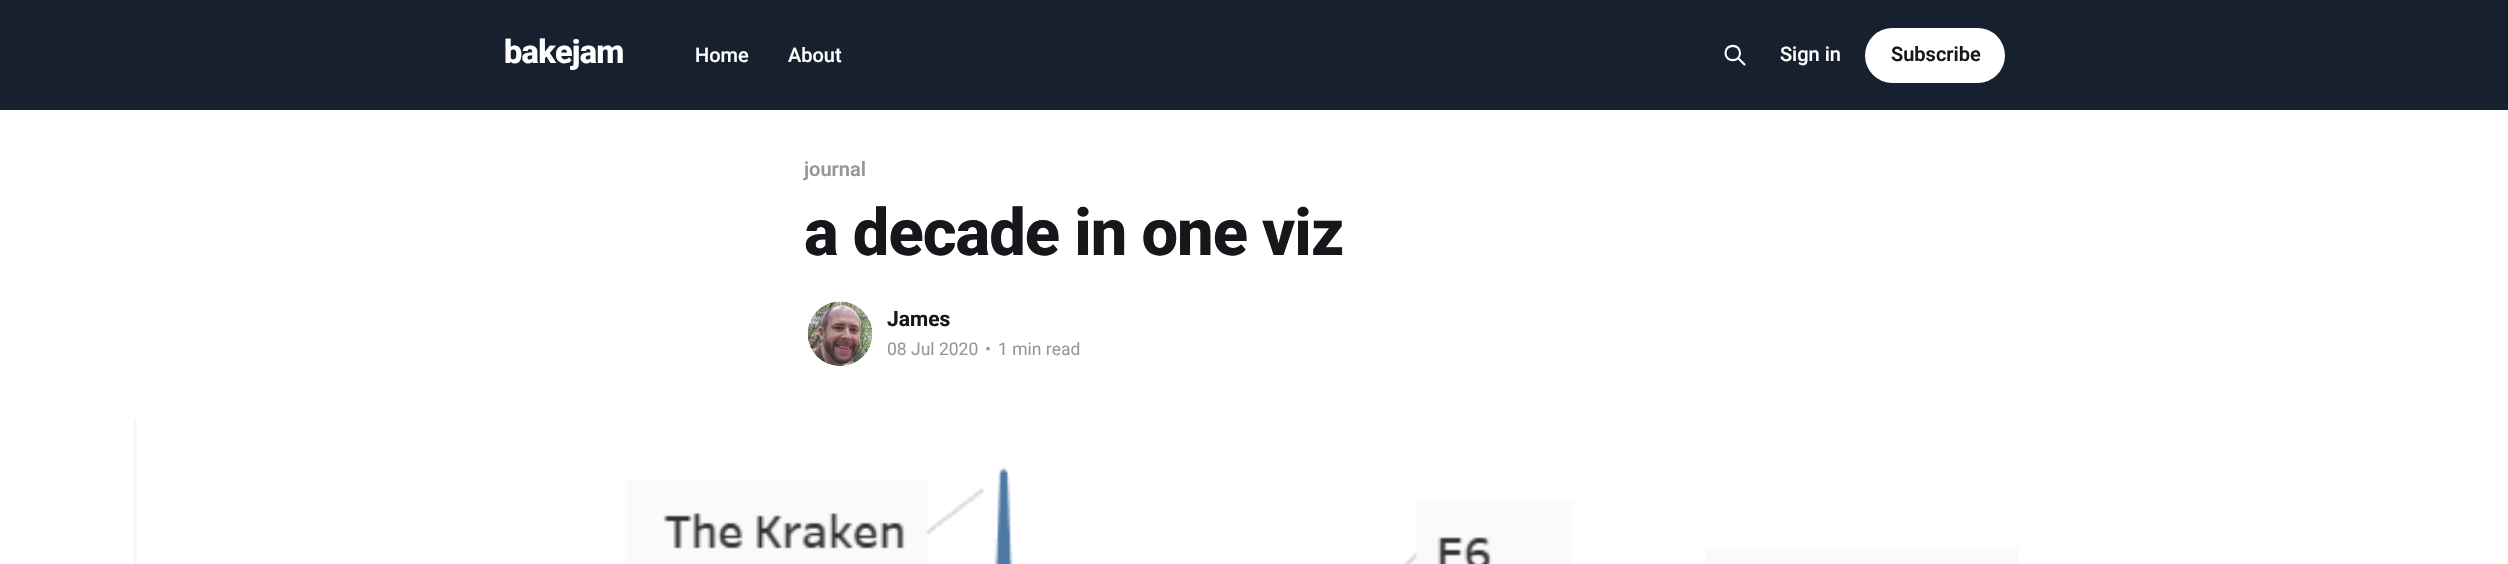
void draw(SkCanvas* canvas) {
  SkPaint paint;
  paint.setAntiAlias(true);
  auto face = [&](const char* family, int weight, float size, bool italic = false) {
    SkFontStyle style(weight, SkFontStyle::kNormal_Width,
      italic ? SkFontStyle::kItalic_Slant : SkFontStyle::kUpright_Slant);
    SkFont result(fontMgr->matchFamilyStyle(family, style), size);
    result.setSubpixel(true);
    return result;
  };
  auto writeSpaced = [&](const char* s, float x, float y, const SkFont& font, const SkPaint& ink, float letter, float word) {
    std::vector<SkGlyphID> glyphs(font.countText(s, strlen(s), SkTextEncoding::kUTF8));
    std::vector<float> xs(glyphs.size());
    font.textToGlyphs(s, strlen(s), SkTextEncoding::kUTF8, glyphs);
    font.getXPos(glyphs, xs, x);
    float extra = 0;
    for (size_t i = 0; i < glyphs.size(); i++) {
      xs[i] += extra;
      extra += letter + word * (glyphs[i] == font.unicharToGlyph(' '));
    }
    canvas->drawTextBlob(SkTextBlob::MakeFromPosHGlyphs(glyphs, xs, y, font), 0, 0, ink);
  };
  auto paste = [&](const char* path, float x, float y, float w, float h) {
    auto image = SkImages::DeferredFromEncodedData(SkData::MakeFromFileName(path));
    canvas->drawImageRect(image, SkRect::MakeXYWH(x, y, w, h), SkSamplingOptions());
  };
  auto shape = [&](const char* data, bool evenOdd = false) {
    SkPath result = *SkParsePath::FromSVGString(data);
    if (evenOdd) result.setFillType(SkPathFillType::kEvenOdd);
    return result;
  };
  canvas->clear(0xffffffff);
  paint.setColor(0xff16202e);
  canvas->drawRect(SkRect::MakeXYWH(0, 0, 2508, 110), paint);
  paint.setStroke(true);
  paint.setStrokeWidth(2.1f);
  paint.setStrokeCap(SkPaint::kRound_Cap);
  paint.setStrokeJoin(SkPaint::kRound_Join);
  paint.setColor(0xffffffff);
  canvas->drawPath(shape("M1744.5 64.5L1738 58M1740 53C1740 62.5 1725.5 62.5 1725.5 53C1725.5 43.5 1740 43.5 1740 53Z"), paint);
  paint.setStroke(false);
  canvas->drawRoundRect(SkRect::MakeXYWH(1865, 28, 140, 55), 27.5f, 27.5f, paint);
  paste("img/1.png", 807, 301, 66, 65);
  paste("img/2.png", 134, 419, 1885, 145);
  auto f0 = face("Roboto", 800, 32.5f);
  writeSpaced("bakejam", 504, 63, f0, paint, -0.75f, 0);
  auto f1 = face("Roboto", 500, 20);
  {
    const struct { const char* s; float x, y; } items[] = {
      {"Home", 695, 62},
      {"About", 788, 62},
      {"Sign in", 1780, 61},
    };
    for (auto [s, x, y] : items) {
      canvas->drawString(s, x, y, f1, paint);
    }
  }
  auto f2 = face("Roboto", 600, 20);
  paint.setColor(0xff15171a);
  canvas->drawString("Subscribe", 1891, 61, f2, paint);
  paint.setColor(0xff979797);
  canvas->drawString("journal", 804, 176, f2, paint);
  auto f3 = face("Roboto", 800, 65);
  paint.setColor(0xff15171a);
  writeSpaced("a decade in one viz", 804, 255, f3, paint, -1, 0);
  auto f4 = face("Roboto", 700, 21);
  canvas->drawString("James", 887, 326, f4, paint);
  auto f5 = face("Roboto", 400, 17.5f);
  paint.setColor(0xff979797);
  {
    const struct { const char* s; float x, y; } items[] = {
      {"08 Jul 2020", 887, 355},
      {"•", 985, 355},
      {"1 min read", 998, 355},
    };
    for (auto [s, x, y] : items) {
      canvas->drawString(s, x, y, f5, paint);
    }
  }
}
